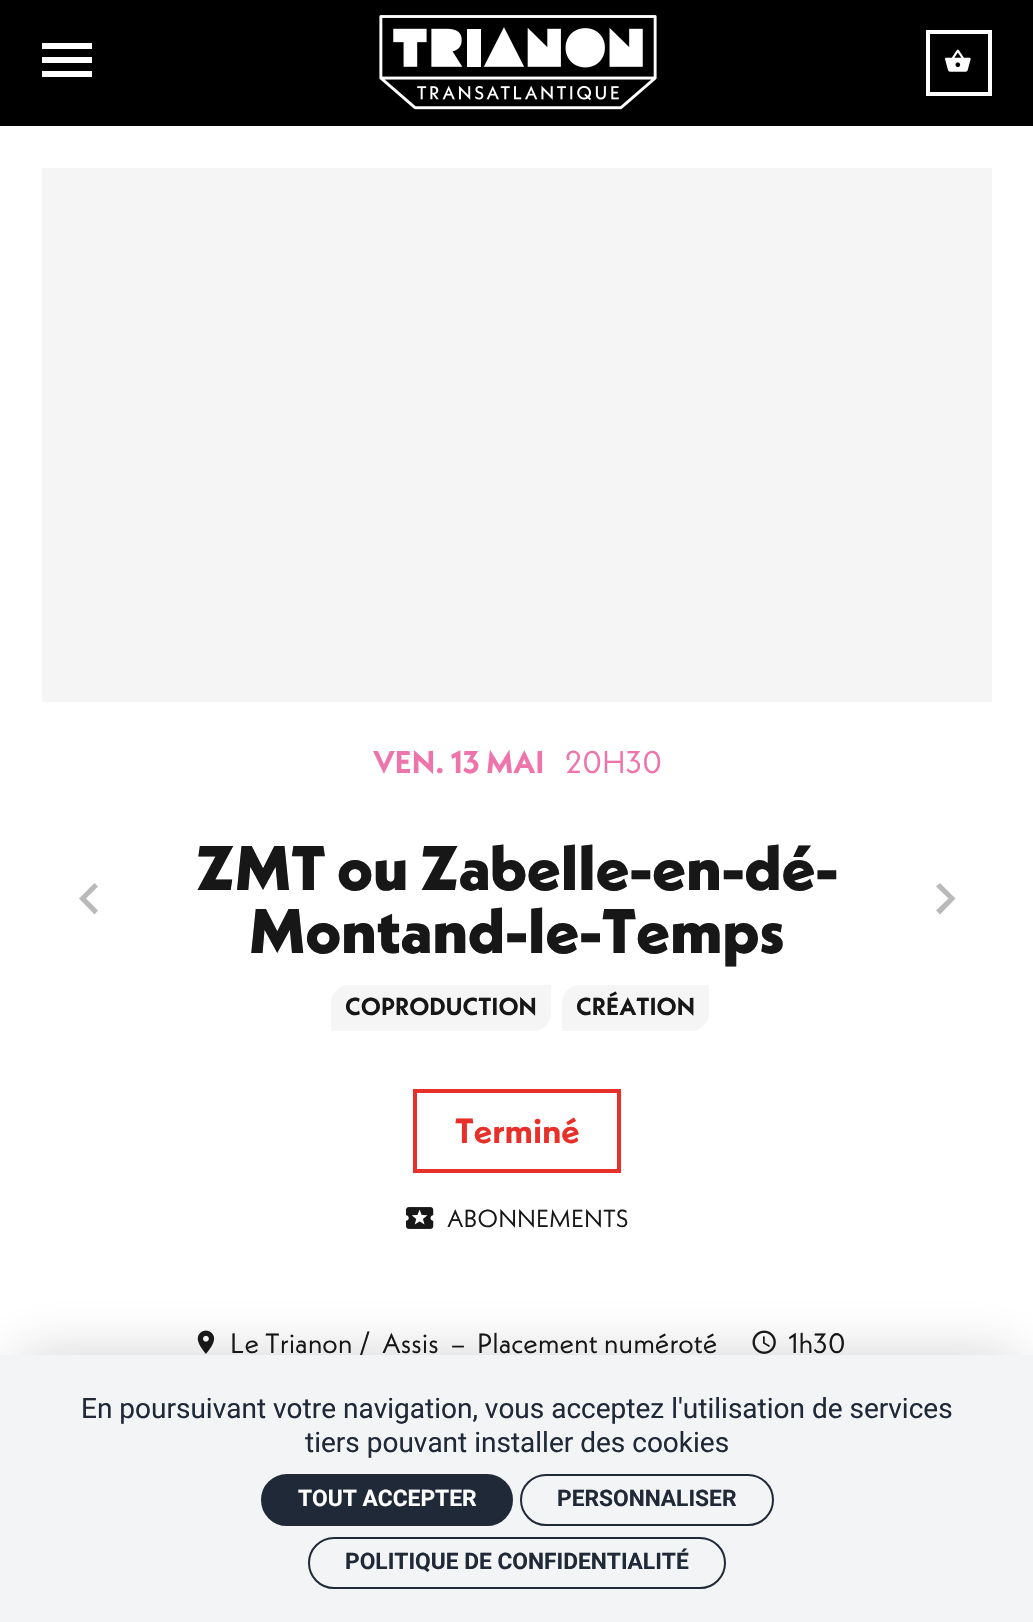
void draw(SkCanvas* canvas) {
  SkPaint paint;
  paint.setAntiAlias(true);
  auto face = [&](const char* family, int weight, float size, bool italic = false) {
    SkFontStyle style(weight, SkFontStyle::kNormal_Width,
      italic ? SkFontStyle::kItalic_Slant : SkFontStyle::kUpright_Slant);
    SkFont result(fontMgr->matchFamilyStyle(family, style), size);
    result.setSubpixel(true);
    return result;
  };
  auto paste = [&](const char* path, float x, float y, float w, float h) {
    auto image = SkImages::DeferredFromEncodedData(SkData::MakeFromFileName(path));
    canvas->drawImageRect(image, SkRect::MakeXYWH(x, y, w, h), SkSamplingOptions());
  };
  auto shape = [&](const char* data, bool evenOdd = false) {
    SkPath result = *SkParsePath::FromSVGString(data);
    if (evenOdd) result.setFillType(SkPathFillType::kEvenOdd);
    return result;
  };
  canvas->clear(0xffffffff);
  paint.setColor(0xff000000);
  canvas->drawRect(SkRect::MakeXYWH(0, 0, 1033, 126), paint);
  paint.setColor(0xffffffff);
  canvas->drawPath(shape("M42 77V71H92V77ZM42 63V57H92V63ZM42 43H92V49H42Z"), paint);
  paste("img/1.png", 379, 15, 278, 95);
  paint.setStroke(true);
  paint.setStrokeWidth(4);
  canvas->drawRect(SkRect::MakeXYWH(928, 32, 62, 62), paint);
  paste("img/2.png", 945, 49, 26, 23);
  paint.setStroke(false);
  paint.setColor(0xfff5f5f5);
  canvas->drawRect(SkRect::MakeXYWH(42, 168, 950, 534), paint);
  paint.setColor(0xffb9b9b9);
  canvas->drawPath(shape("M98 886.5L86 898.5L98 910.5L94.5 914.5L79 898.5L94.5 883Z"), paint);
  canvas->drawPath(shape("M940 883L955.5 898.5L940 914.5L936 910.5L948.5 898.5L936 886.5Z"), paint);
  paint.setColor(0xfff5f5f5);
  canvas->drawPath(shape("M349 985H551V1013C551 1023 543 1031 533 1031H331V1003C331 993 339 985 349 985Z"), paint);
  canvas->drawPath(shape("M580 985H709V1013C709 1023 701 1031 691 1031H562V1003C562 993 570 985 580 985Z"), paint);
  paint.setStroke(true);
  paint.setColor(0xffe7302a);
  canvas->drawRect(SkRect::MakeXYWH(415, 1091, 204, 80), paint);
  paste("img/3.png", 406, 1207, 28, 22);
  paste("img/4.png", 197, 1330, 18, 24);
  paste("img/5.png", 752, 1330, 24, 24);
  paint.setStroke(false);
  paint.setColor(0x33222230);
  paint.setMaskFilter(SkMaskFilter::MakeBlur(kNormal_SkBlurStyle, 26));
  canvas->drawRect(SkRect::MakeXYWH(18, 1355, 999, 232), paint);
  paint.setMaskFilter(nullptr);
  auto f0 = face("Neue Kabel", 700, 31.5f);
  paint.setColor(0xffee75ab);
  canvas->drawString("VEN. 13 MAI", 373, 773, f0, paint);
  auto f1 = face("Neue Kabel", 400, 31.5f);
  canvas->drawString("20H30", 565, 773, f1, paint);
  auto f2 = face("Neue Kabel", 800, 63);
  paint.setColor(0xff171717);
  canvas->drawString("ZMT ou Zabelle-en-dé-", 196, 890, f2, paint);
  canvas->drawString("Montand-le-Temps", 249, 953, f2, paint);
  auto f3 = face("Neue Kabel", 700, 24.5f);
  canvas->drawString("COPRODUCTION", 345, 1015, f3, paint);
  canvas->drawString("CRÉATION", 576, 1015, f3, paint);
  auto f4 = face("Neue Kabel", 700, 35);
  paint.setColor(0xffe7302a);
  canvas->drawString("Terminé", 455, 1143, f4, paint);
  auto f5 = face("Neue Kabel", 400, 24.5f);
  paint.setColor(0xff171717);
  canvas->drawString("ABONNEMENTS", 447, 1227, f5, paint);
  auto f6 = face("Neue Kabel", 400, 28);
  {
    const struct { const char* s; float x, y; } items[] = {
      {"Le Trianon /", 230, 1353},
      {"Assis", 382, 1353},
      {"–", 451, 1353},
      {"Placement numéroté", 477, 1353},
      {"1h30", 788, 1353},
    };
    for (auto [s, x, y] : items) {
      canvas->drawString(s, x, y, f6, paint);
    }
  }
  paint.setColor(0xfff3f4f6);
  canvas->drawRect(SkRect::MakeXYWH(0, 1355, 1033, 267), paint);
  auto f7 = face("Roboto", 400, 28);
  paint.setColor(0xff1f2937);
  canvas->drawString("En poursuivant votre navigation, vous acceptez l'utilisation de services", 81, 1418, f7, paint);
  canvas->drawString("tiers pouvant installer des cookies", 305, 1452, f7, paint);
  canvas->drawRoundRect(SkRect::MakeXYWH(262, 1475, 250, 50), 25, 25, paint);
  paint.setStroke(true);
  paint.setStrokeWidth(2);
  canvas->drawRoundRect(SkRect::MakeXYWH(262, 1475, 250, 50), 25, 25, paint);
  auto f8 = face("Roboto", 700, 22.75f);
  paint.setStroke(false);
  paint.setColor(0xffffffff);
  canvas->drawString("TOUT ACCEPTER", 298, 1506, f8, paint);
  paint.setStroke(true);
  paint.setColor(0xff1f2937);
  canvas->drawRoundRect(SkRect::MakeXYWH(521, 1475, 252, 50), 25, 25, paint);
  paint.setStroke(false);
  canvas->drawString("PERSONNALISER", 557, 1506, f8, paint);
  paint.setStroke(true);
  canvas->drawRoundRect(SkRect::MakeXYWH(309, 1538, 416, 50), 25, 25, paint);
  paint.setStroke(false);
  canvas->drawString("POLITIQUE DE CONFIDENTIALITÉ", 345, 1569, f8, paint);
}
